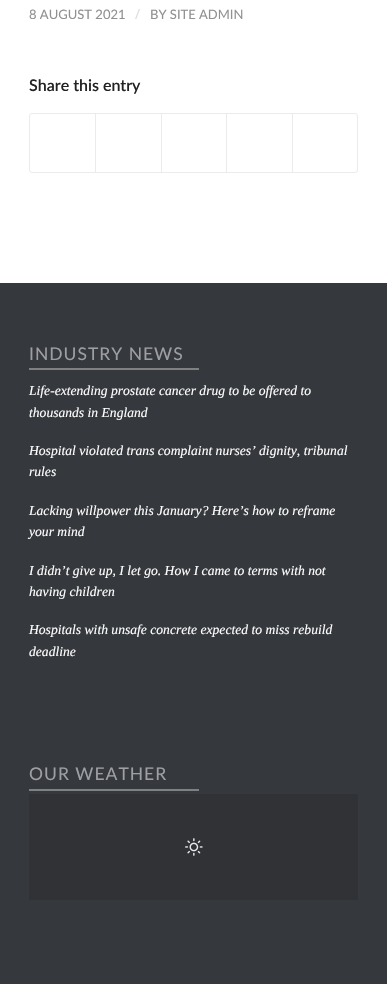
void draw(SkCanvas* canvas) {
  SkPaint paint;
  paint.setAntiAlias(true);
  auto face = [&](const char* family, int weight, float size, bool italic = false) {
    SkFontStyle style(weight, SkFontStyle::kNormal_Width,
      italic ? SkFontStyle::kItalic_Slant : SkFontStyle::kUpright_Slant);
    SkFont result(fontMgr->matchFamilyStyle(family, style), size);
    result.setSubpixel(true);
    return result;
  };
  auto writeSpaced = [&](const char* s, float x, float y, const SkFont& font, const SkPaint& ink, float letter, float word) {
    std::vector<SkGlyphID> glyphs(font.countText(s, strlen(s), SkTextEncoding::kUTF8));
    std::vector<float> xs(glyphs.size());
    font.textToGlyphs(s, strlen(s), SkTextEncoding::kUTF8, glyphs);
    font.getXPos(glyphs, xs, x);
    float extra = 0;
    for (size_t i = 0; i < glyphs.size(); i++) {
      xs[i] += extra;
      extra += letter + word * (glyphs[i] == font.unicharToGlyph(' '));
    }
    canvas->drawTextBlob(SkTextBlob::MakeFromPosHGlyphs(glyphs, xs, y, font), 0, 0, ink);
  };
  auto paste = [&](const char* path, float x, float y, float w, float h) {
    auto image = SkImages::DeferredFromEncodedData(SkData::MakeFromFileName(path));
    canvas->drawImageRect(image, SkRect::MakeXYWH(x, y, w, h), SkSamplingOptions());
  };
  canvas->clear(0xffffffff);
  paint.setStroke(true);
  paint.setStrokeWidth(1);
  paint.setColor(0xffebebeb);
  canvas->drawRoundRect(SkRect::MakeXYWH(29.5f, 113.5f, 328, 59), 2.5f, 2.5f, paint);
  paint.setStroke(false);
  {
    const struct { float x, y, w, h; SkColor color; } items[] = {
      {95, 114, 1, 58, 0xffebebeb},
      {161, 114, 1, 58, 0xffebebeb},
      {226, 114, 1, 58, 0xffebebeb},
      {292, 114, 1, 58, 0xffebebeb},
      {0, 283, 387, 701, 0xff35383c},
      {29, 368, 170, 2, 0xff808080},
      {29, 789, 170, 2, 0xff808080},
      {29, 794, 329, 106, 0xff303236},
    };
    for (auto [x, y, w, h, color] : items) {
      paint.setColor(color);
      canvas->drawRect(SkRect::MakeXYWH(x, y, w, h), paint);
    }
  }
  paste("img/1.png", 185, 838, 18, 18);
  auto f0 = face("Lato", 400, 13);
  paint.setColor(0xff919191);
  canvas->drawString("8 AUGUST 2021", 29, 19, f0, paint);
  auto f1 = face("Open Sans", 400, 14);
  paint.setColor(0xffdedede);
  canvas->drawString("/", 135, 19, f1, paint);
  paint.setColor(0xff919191);
  canvas->drawString("BY SITE ADMIN", 150, 19, f0, paint);
  auto f2 = face("Lato", 600, 16);
  paint.setColor(0xff222222);
  canvas->drawString("Share this entry", 29, 91, f2, paint);
  auto f3 = face("Lato", 400, 17.5f);
  paint.setColor(0xff9e9ea6);
  writeSpaced("INDUSTRY NEWS", 29, 360, f3, paint, 1, 0);
  auto f4 = face("Liberation Serif", 400, 13.6f, true);
  paint.setColor(0xffffffff);
  {
    const struct { const char* s; float x, y; } items[] = {
      {"Life-extending prostate cancer drug to be offered to", 29, 395},
      {"thousands in England", 29, 417},
      {"Hospital violated trans complaint nurses’ dignity, tribunal", 29, 455},
      {"rules", 29, 476},
      {"Lacking willpower this January? Here’s how to reframe", 29, 515},
      {"your mind", 29, 536},
      {"I didn’t give up, I let go. How I came to terms with not", 29, 575},
      {"having children", 29, 596},
      {"Hospitals with unsafe concrete expected to miss rebuild", 29, 634},
      {"deadline", 29, 656},
    };
    for (auto [s, x, y] : items) {
      canvas->drawString(s, x, y, f4, paint);
    }
  }
  paint.setColor(0xff9e9ea6);
  writeSpaced("OUR WEATHER", 29, 780, f3, paint, 1, 0);
}
